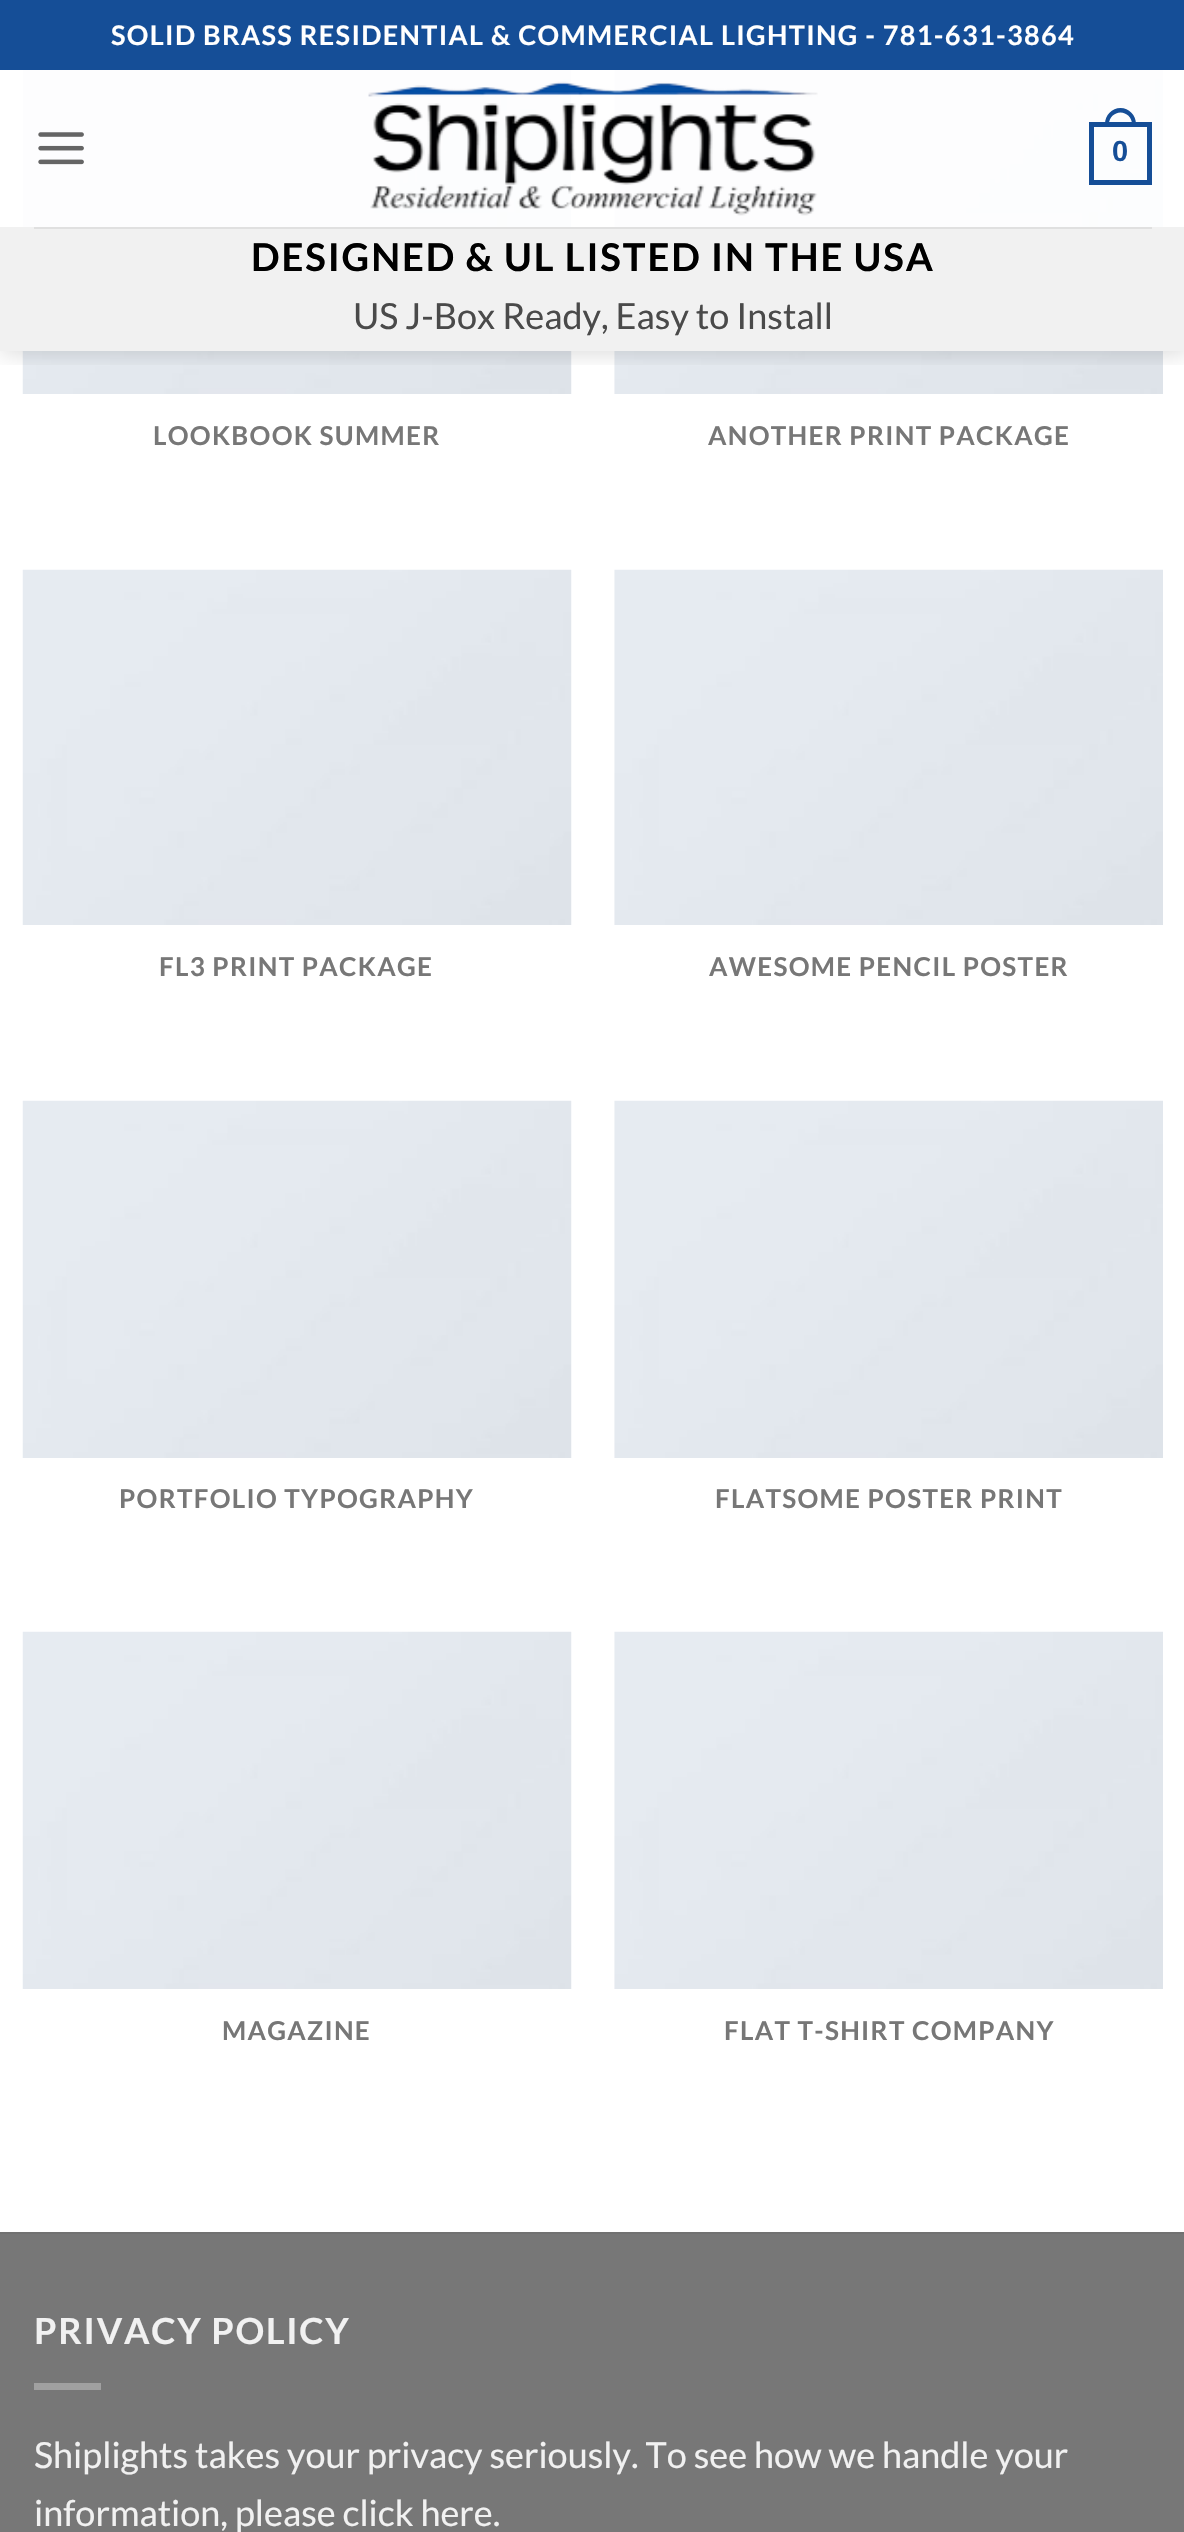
void draw(SkCanvas* canvas) {
  SkPaint paint;
  paint.setAntiAlias(true);
  auto face = [&](const char* family, int weight, float size, bool italic = false) {
    SkFontStyle style(weight, SkFontStyle::kNormal_Width,
      italic ? SkFontStyle::kItalic_Slant : SkFontStyle::kUpright_Slant);
    SkFont result(fontMgr->matchFamilyStyle(family, style), size);
    result.setSubpixel(true);
    return result;
  };
  auto writeSpaced = [&](const char* s, float x, float y, const SkFont& font, const SkPaint& ink, float letter, float word) {
    std::vector<SkGlyphID> glyphs(font.countText(s, strlen(s), SkTextEncoding::kUTF8));
    std::vector<float> xs(glyphs.size());
    font.textToGlyphs(s, strlen(s), SkTextEncoding::kUTF8, glyphs);
    font.getXPos(glyphs, xs, x);
    float extra = 0;
    for (size_t i = 0; i < glyphs.size(); i++) {
      xs[i] += extra;
      extra += letter + word * (glyphs[i] == font.unicharToGlyph(' '));
    }
    canvas->drawTextBlob(SkTextBlob::MakeFromPosHGlyphs(glyphs, xs, y, font), 0, 0, ink);
  };
  auto paste = [&](const char* path, float x, float y, float w, float h) {
    auto image = SkImages::DeferredFromEncodedData(SkData::MakeFromFileName(path));
    canvas->drawImageRect(image, SkRect::MakeXYWH(x, y, w, h), SkSamplingOptions());
  };
  auto shape = [&](const char* data, bool evenOdd = false) {
    SkPath result = *SkParsePath::FromSVGString(data);
    if (evenOdd) result.setFillType(SkPathFillType::kEvenOdd);
    return result;
  };
  canvas->clear(0xffffffff);
  paste("img/3.png", 22, 70, 550, 324);
  paste("img/4.png", 614, 70, 549, 324);
  canvas->save();
  canvas->clipRect(SkRect::MakeXYWH(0, 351, 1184, 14));
  paint.setColor(0x26000000);
  paint.setMaskFilter(SkMaskFilter::MakeBlur(kNormal_SkBlurStyle, 11));
  canvas->drawRect(SkRect::MakeXYWH(2, 2, 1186, 351), paint);
  paint.setMaskFilter(nullptr);
  canvas->restore();
  paint.setColor(0xff154e97);
  canvas->drawRect(SkRect::MakeXYWH(0, 0, 1184, 70), paint);
  paint.setColor(0xe6ffffff);
  canvas->drawRect(SkRect::MakeXYWH(22, 70, 1141, 157), paint);
  paste("img/1.png", 38, 132, 46, 33);
  paste("img/2.png", 368, 81, 450, 135);
  paint.setStroke(true);
  paint.setStrokeWidth(5);
  paint.setColor(0xff154e97);
  canvas->drawRect(SkRect::MakeXYWH(1091.5f, 124.5f, 58, 58), paint);
  paint.setStroke(false);
  canvas->drawPath(shape("M1120.5 108C1129 108 1136 115 1136 124V126H1105V124C1105 115 1112 108 1120.5 108ZM1120.5 112.5C1126.5 112.5 1132 117.5 1132 124V126H1109V124C1109 117.5 1114.5 112.5 1120.5 112.5Z", true), paint);
  paint.setColor(0xfff1f1f1);
  canvas->drawRect(SkRect::MakeXYWH(0, 227, 1184, 124), paint);
  paint.setColor(0xffe0e0e0);
  canvas->drawRect(SkRect::MakeXYWH(34, 227, 1118, 2), paint);
  paste("img/5.png", 22, 569, 550, 356);
  paste("img/6.png", 614, 569, 549, 356);
  paste("img/7.png", 22, 1100, 550, 358);
  paste("img/8.png", 614, 1100, 549, 358);
  paste("img/7.png", 22, 1631, 550, 358);
  paste("img/8.png", 614, 1631, 549, 358);
  {
    const struct { float x, y, w, h; SkColor color; } items[] = {
      {0, 2234, 1184, 298, 0xff777777},
      {0, 2232, 1184, 2, 0xff717171},
      {34, 2383, 67, 7, 0xffa0a0a0},
    };
    for (auto [x, y, w, h, color] : items) {
      paint.setColor(color);
      canvas->drawRect(SkRect::MakeXYWH(x, y, w, h), paint);
    }
  }
  auto f0 = face("Lato", 700, 27);
  paint.setColor(0xffffffff);
  writeSpaced("SOLID BRASS RESIDENTIAL & COMMERCIAL LIGHTING - 781-631-3864", 111, 45, f0, paint, 1.35f, 0);
  auto f1 = face("Liberation Sans", 700, 29);
  paint.setColor(0xff154e97);
  canvas->drawString("0", 1112, 161, f1, paint);
  auto f2 = face("Lato", 700, 38.25f);
  paint.setColor(0xff000000);
  writeSpaced("DESIGNED & UL LISTED IN THE USA", 251, 271, f2, paint, 1.9f, 0);
  auto f3 = face("Lato", 400, 36);
  paint.setColor(0xff4a4a4a);
  canvas->drawString("US J-Box Ready, Easy to Install", 353, 329, f3, paint);
  auto f4 = face("Lato", 700, 26);
  paint.setColor(0xff777777);
  {
    const struct { const char* s; float x, y; } items[] = {
      {"LOOKBOOK SUMMER", 153, 445},
      {"ANOTHER PRINT PACKAGE", 708, 445},
      {"FL3 PRINT PACKAGE", 159, 976},
      {"AWESOME PENCIL POSTER", 709, 976},
      {"PORTFOLIO TYPOGRAPHY", 119, 1508},
      {"FLATSOME POSTER PRINT", 715, 1508},
      {"MAGAZINE", 222, 2040},
      {"FLAT T-SHIRT COMPANY", 724, 2040},
    };
    for (auto [s, x, y] : items) {
      writeSpaced(s, x, y, f4, paint, 1.3f, 0);
    }
  }
  auto f5 = face("Lato", 700, 36);
  paint.setColor(0xfff1f1f1);
  writeSpaced("PRIVACY POLICY", 34, 2344, f5, paint, 1.75f, 0);
  canvas->drawString("Shiplights takes your privacy seriously. To see how we handle your", 34, 2468, f3, paint);
  canvas->drawString("information, please click here.", 34, 2526, f3, paint);
}
